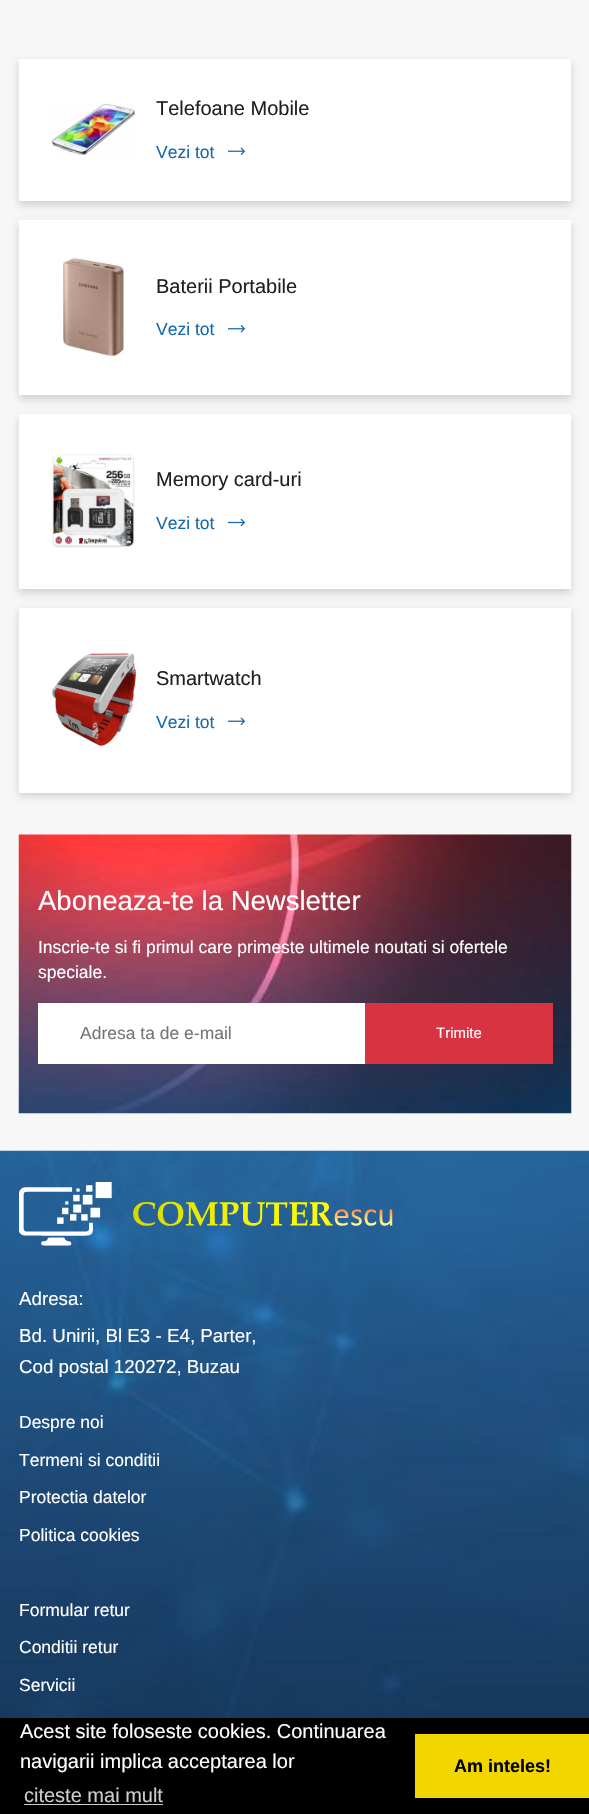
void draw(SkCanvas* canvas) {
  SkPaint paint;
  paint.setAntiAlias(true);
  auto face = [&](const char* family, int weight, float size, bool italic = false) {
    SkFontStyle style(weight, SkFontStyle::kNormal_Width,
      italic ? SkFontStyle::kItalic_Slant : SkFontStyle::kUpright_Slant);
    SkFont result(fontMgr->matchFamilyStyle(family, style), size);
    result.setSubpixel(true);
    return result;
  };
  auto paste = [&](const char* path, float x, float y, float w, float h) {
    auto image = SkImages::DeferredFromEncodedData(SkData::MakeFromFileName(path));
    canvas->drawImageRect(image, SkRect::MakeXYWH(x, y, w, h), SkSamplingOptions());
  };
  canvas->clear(0xfff7f7f7);
  paint.setColor(0x29000000);
  paint.setMaskFilter(SkMaskFilter::MakeBlur(kNormal_SkBlurStyle, 4));
  canvas->drawRect(SkRect::MakeXYWH(19, 63, 552, 142), paint);
  paint.setMaskFilter(nullptr);
  paint.setColor(0xffffffff);
  canvas->drawRect(SkRect::MakeXYWH(19, 59, 552, 142), paint);
  paste("img/1.png", 51, 104, 84, 51);
  paste("img/2.png", 228, 147, 17, 8);
  paint.setColor(0x29000000);
  paint.setMaskFilter(SkMaskFilter::MakeBlur(kNormal_SkBlurStyle, 4));
  canvas->drawRect(SkRect::MakeXYWH(19, 224, 552, 175), paint);
  paint.setMaskFilter(nullptr);
  paint.setColor(0xffffffff);
  canvas->drawRect(SkRect::MakeXYWH(19, 220, 552, 175), paint);
  paste("img/3.png", 63, 257, 62, 100);
  paste("img/4.png", 228, 325, 17, 8);
  paint.setColor(0x29000000);
  paint.setMaskFilter(SkMaskFilter::MakeBlur(kNormal_SkBlurStyle, 4));
  canvas->drawRect(SkRect::MakeXYWH(19, 418, 552, 175), paint);
  paint.setMaskFilter(nullptr);
  paint.setColor(0xffffffff);
  canvas->drawRect(SkRect::MakeXYWH(19, 414, 552, 175), paint);
  paste("img/5.png", 50, 454, 85, 94);
  paste("img/6.png", 228, 518, 17, 9);
  paint.setColor(0x29000000);
  paint.setMaskFilter(SkMaskFilter::MakeBlur(kNormal_SkBlurStyle, 4));
  canvas->drawRect(SkRect::MakeXYWH(19, 611, 552, 185), paint);
  paint.setMaskFilter(nullptr);
  paint.setColor(0xffffffff);
  canvas->drawRect(SkRect::MakeXYWH(19, 608, 552, 185), paint);
  paste("img/7.png", 51, 653, 86, 93);
  paste("img/2.png", 228, 717, 17, 8);
  paste("img/8.png", 18, 834, 554, 280);
  canvas->drawRect(SkRect::MakeXYWH(38, 1003, 327, 61), paint);
  paint.setColor(0xffd73340);
  canvas->drawRect(SkRect::MakeXYWH(365, 1003, 188, 61), paint);
  paste("img/9.png", 0, 1150, 589, 568);
  paste("img/10.png", 19, 1182, 374, 64);
  {
    const struct { float x, y, w, h; SkColor color; } items[] = {
      {0, 1718, 589, 96, 0xff000000},
      {24, 1804, 139, 1, 0xffcccccc},
      {415, 1734, 174, 64, 0xfff1d600},
    };
    for (auto [x, y, w, h, color] : items) {
      paint.setColor(color);
      canvas->drawRect(SkRect::MakeXYWH(x, y, w, h), paint);
    }
  }
  auto f0 = face("Liberation Sans", 400, 20);
  paint.setColor(0xff212020);
  canvas->drawString("Telefoane Mobile", 156, 115, f0, paint);
  auto f1 = face("Liberation Sans", 400, 17.5f);
  paint.setColor(0xff1768ac);
  canvas->drawString("Vezi tot", 156, 158, f1, paint);
  paint.setColor(0xff212020);
  canvas->drawString("Baterii Portabile", 156, 293, f0, paint);
  paint.setColor(0xff1768ac);
  canvas->drawString("Vezi tot", 156, 335, f1, paint);
  paint.setColor(0xff212020);
  canvas->drawString("Memory card-uri", 156, 486, f0, paint);
  paint.setColor(0xff1768ac);
  canvas->drawString("Vezi tot", 156, 529, f1, paint);
  paint.setColor(0xff212020);
  canvas->drawString("Smartwatch", 156, 685, f0, paint);
  paint.setColor(0xff1768ac);
  canvas->drawString("Vezi tot", 156, 728, f1, paint);
  auto f2 = face("Liberation Sans", 400, 27.5f);
  paint.setColor(0xffffffff);
  canvas->drawString("Aboneaza-te la Newsletter", 38, 910, f2, paint);
  canvas->drawString("Inscrie-te si fi primul care primeste ultimele noutati si ofertele", 38, 953, f1, paint);
  canvas->drawString("speciale.", 38, 978, f1, paint);
  paint.setColor(0xff757575);
  canvas->drawString("Adresa ta de e-mail", 80, 1039, f1, paint);
  auto f3 = face("Liberation Sans", 400, 15);
  paint.setColor(0xffffffff);
  canvas->drawString("Trimite", 436, 1038, f3, paint);
  auto f4 = face("Liberation Sans", 400, 18.75f);
  {
    const struct { const char* s; float x, y; } items[] = {
      {"Adresa:", 19, 1305},
      {"Bd. Unirii, Bl E3 - E4, Parter,", 19, 1342},
      {"Cod postal 120272, Buzau", 19, 1373},
    };
    for (auto [s, x, y] : items) {
      canvas->drawString(s, x, y, f4, paint);
    }
  }
  {
    const struct { const char* s; float x, y; } items[] = {
      {"Despre noi", 19, 1428},
      {"Termeni si conditii", 19, 1466},
      {"Protectia datelor", 19, 1503},
      {"Politica cookies", 19, 1541},
      {"Formular retur", 19, 1616},
      {"Conditii retur", 19, 1653},
      {"Servicii", 19, 1691},
    };
    for (auto [s, x, y] : items) {
      canvas->drawString(s, x, y, f1, paint);
    }
  }
  canvas->drawString("Acest site foloseste cookies. Continuarea", 20, 1738, f0, paint);
  canvas->drawString("navigarii implica acceptarea lor", 20, 1768, f0, paint);
  paint.setColor(0xffcccccc);
  canvas->drawString("citeste mai mult", 24, 1802, f0, paint);
  auto f5 = face("Liberation Sans", 700, 18);
  paint.setColor(0xff000000);
  canvas->drawString("Am inteles!", 454, 1772, f5, paint);
}
